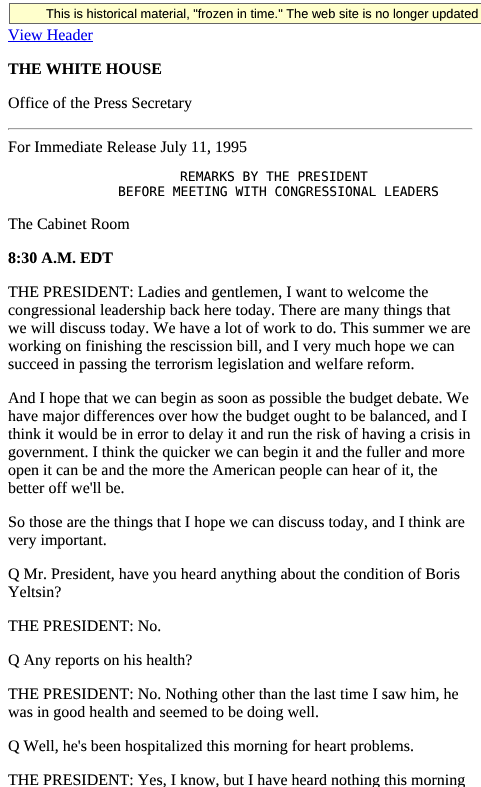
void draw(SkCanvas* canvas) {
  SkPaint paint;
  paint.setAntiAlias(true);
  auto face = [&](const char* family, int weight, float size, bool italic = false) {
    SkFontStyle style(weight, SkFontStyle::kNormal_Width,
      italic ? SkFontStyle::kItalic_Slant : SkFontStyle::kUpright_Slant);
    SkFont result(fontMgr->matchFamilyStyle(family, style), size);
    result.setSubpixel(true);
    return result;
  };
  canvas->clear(0xffffffff);
  paint.setColor(0xffffffcc);
  canvas->drawRect(SkRect::MakeXYWH(9.5f, 3.5f, 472, 20), paint);
  paint.setStroke(true);
  paint.setStrokeWidth(1);
  paint.setColor(0xff666666);
  canvas->drawRect(SkRect::MakeXYWH(9.5f, 3.5f, 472, 20), paint);
  paint.setStroke(false);
  {
    const struct { float x, y, w, h; SkColor color; } items[] = {
      {8, 41, 85, 1, 0xff0000ee},
      {8, 128, 465, 1, 0xff9f9f9f},
      {472, 128, 1, 2, 0xffeeeeee},
      {8, 129, 465, 1, 0xffeeeeee},
      {8, 128, 1, 2, 0xff9f9f9f},
    };
    for (auto [x, y, w, h, color] : items) {
      paint.setColor(color);
      canvas->drawRect(SkRect::MakeXYWH(x, y, w, h), paint);
    }
  }
  auto f0 = face("Liberation Sans", 400, 12.8f);
  paint.setColor(0xff000000);
  canvas->drawString("This is historical material, \"frozen in time.\" The web site is no longer updated", 46, 18, f0, paint);
  auto f1 = face("Liberation Serif", 400, 16);
  paint.setColor(0xff0000ee);
  canvas->drawString("View Header", 8, 40, f1, paint);
  auto f2 = face("Liberation Serif", 700, 16);
  paint.setColor(0xff000000);
  canvas->drawString("THE WHITE HOUSE", 8, 74, f2, paint);
  canvas->drawString("Office of the Press Secretary", 8, 108, f1, paint);
  canvas->drawString("For Immediate Release July 11, 1995", 8, 152, f1, paint);
  auto f3 = face("DejaVu Sans Mono", 400, 13);
  canvas->drawString("REMARKS BY THE PRESIDENT", 180, 181, f3, paint);
  canvas->drawString("BEFORE MEETING WITH CONGRESSIONAL LEADERS", 118, 196, f3, paint);
  canvas->drawString("The Cabinet Room", 8, 229, f1, paint);
  canvas->drawString("8:30 A.M. EDT", 8, 263, f2, paint);
  {
    const struct { const char* s; float x, y; } items[] = {
      {"THE PRESIDENT: Ladies and gentlemen, I want to welcome the", 8, 297},
      {"congressional leadership back here today. There are many things that", 8, 315},
      {"we will discuss today. We have a lot of work to do. This summer we are", 8, 333},
      {"working on finishing the rescission bill, and I very much hope we can", 8, 351},
      {"succeed in passing the terrorism legislation and welfare reform.", 8, 369},
      {"And I hope that we can begin as soon as possible the budget debate. We", 8, 403},
      {"have major differences over how the budget ought to be balanced, and I", 8, 421},
      {"think it would be in error to delay it and run the risk of having a crisis in", 8, 439},
      {"government. I think the quicker we can begin it and the fuller and more", 8, 457},
      {"open it can be and the more the American people can hear of it, the", 8, 475},
      {"better off we'll be.", 8, 493},
      {"So those are the things that I hope we can discuss today, and I think are", 8, 527},
      {"very important.", 8, 545},
      {"Q Mr. President, have you heard anything about the condition of Boris", 8, 579},
      {"Yeltsin?", 8, 597},
      {"THE PRESIDENT: No.", 8, 631},
      {"Q Any reports on his health?", 8, 665},
      {"THE PRESIDENT: No. Nothing other than the last time I saw him, he", 8, 699},
      {"was in good health and seemed to be doing well.", 8, 717},
      {"Q Well, he's been hospitalized this morning for heart problems.", 8, 751},
      {"THE PRESIDENT: Yes, I know, but I have heard nothing this morning", 8, 785},
    };
    for (auto [s, x, y] : items) {
      canvas->drawString(s, x, y, f1, paint);
    }
  }
}
